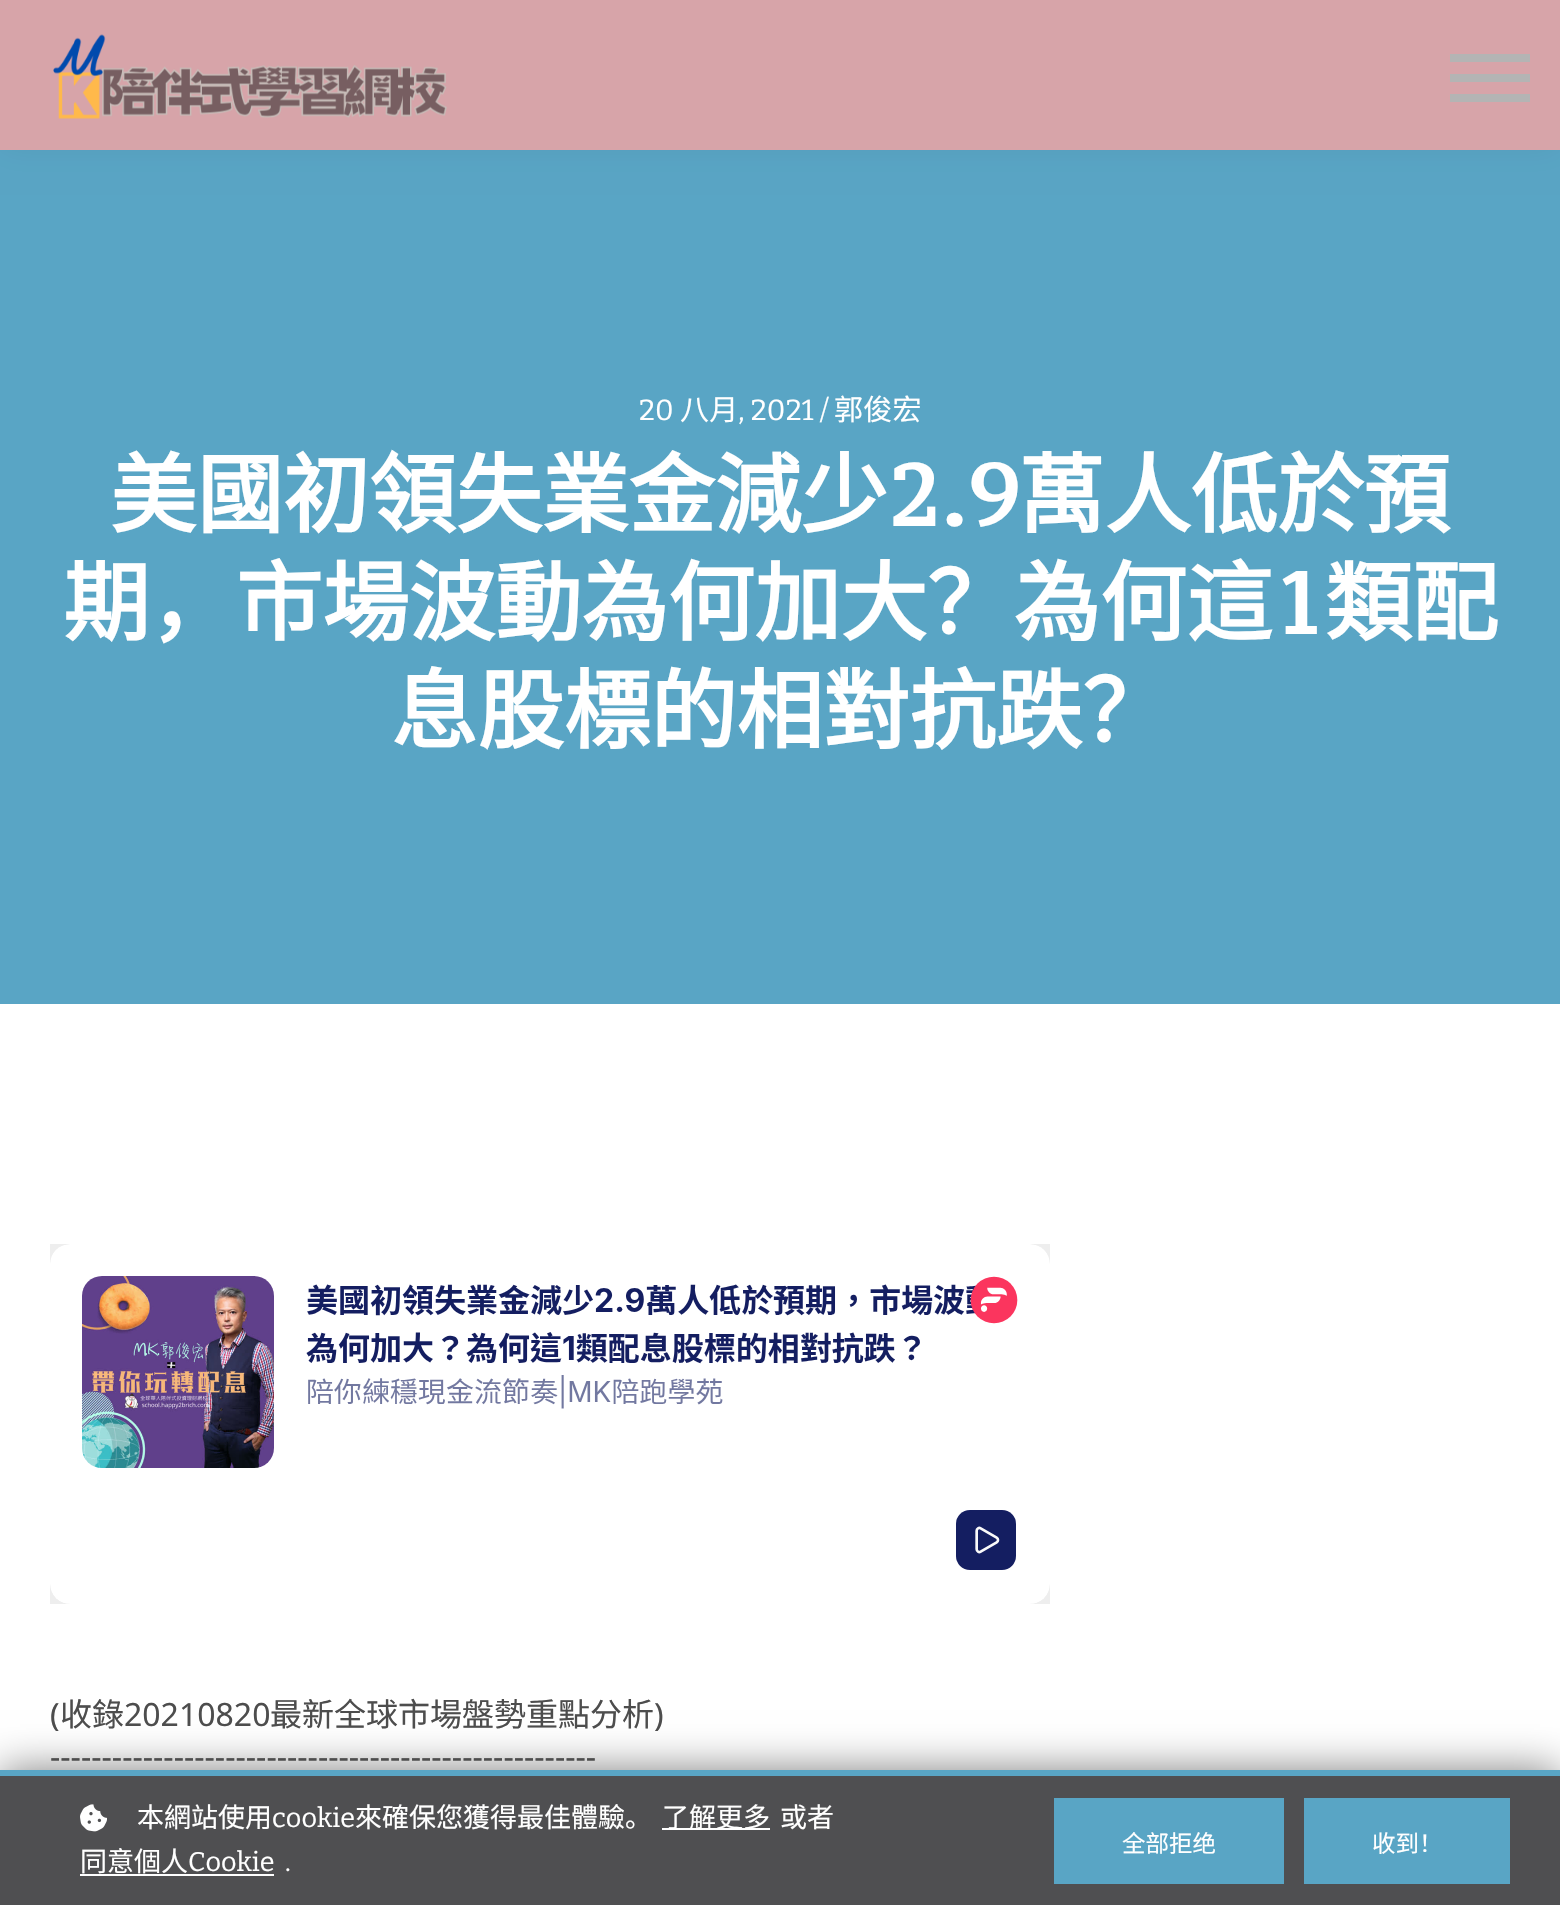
void draw(SkCanvas* canvas) {
  SkPaint paint;
  paint.setAntiAlias(true);
  auto face = [&](const char* family, int weight, float size, bool italic = false) {
    SkFontStyle style(weight, SkFontStyle::kNormal_Width,
      italic ? SkFontStyle::kItalic_Slant : SkFontStyle::kUpright_Slant);
    SkFont result(fontMgr->matchFamilyStyle(family, style), size);
    result.setSubpixel(true);
    return result;
  };
  auto writeSpaced = [&](const char* s, float x, float y, const SkFont& font, const SkPaint& ink, float letter, float word) {
    std::vector<SkGlyphID> glyphs(font.countText(s, strlen(s), SkTextEncoding::kUTF8));
    std::vector<float> xs(glyphs.size());
    font.textToGlyphs(s, strlen(s), SkTextEncoding::kUTF8, glyphs);
    font.getXPos(glyphs, xs, x);
    float extra = 0;
    for (size_t i = 0; i < glyphs.size(); i++) {
      xs[i] += extra;
      extra += letter + word * (glyphs[i] == font.unicharToGlyph(' '));
    }
    canvas->drawTextBlob(SkTextBlob::MakeFromPosHGlyphs(glyphs, xs, y, font), 0, 0, ink);
  };
  auto paste = [&](const char* path, float x, float y, float w, float h) {
    auto image = SkImages::DeferredFromEncodedData(SkData::MakeFromFileName(path));
    canvas->drawImageRect(image, SkRect::MakeXYWH(x, y, w, h), SkSamplingOptions());
  };
  canvas->clear(0xffffffff);
  paint.setColor(0xff59a5c5);
  canvas->drawRect(SkRect::MakeXYWH(0, 150, 1560, 854), paint);
  paint.setColor(0x0d000000);
  paint.setMaskFilter(SkMaskFilter::MakeBlur(kNormal_SkBlurStyle, 15));
  canvas->drawRect(SkRect::MakeXYWH(0, 0, 1560, 150), paint);
  paint.setMaskFilter(nullptr);
  paint.setColor(0xffd7a4a9);
  canvas->drawRect(SkRect::MakeXYWH(0, 0, 1560, 150), paint);
  paste("img/1.png", 53, 34, 394, 85);
  {
    const struct { float x, y, w, h; SkColor color; } items[] = {
      {1450, 94, 80, 8, 0xffb4b4b4},
      {1450, 54, 80, 8, 0xffb4b4b4},
      {1450, 74, 80, 8, 0xffb4b4b4},
    };
    for (auto [x, y, w, h, color] : items) {
      paint.setColor(color);
      canvas->drawRect(SkRect::MakeXYWH(x, y, w, h), paint);
    }
  }
  paste("img/2.png", 50, 1244, 1000, 360);
  paint.setColor(0x80000000);
  paint.setMaskFilter(SkMaskFilter::MakeBlur(kNormal_SkBlurStyle, 20));
  canvas->drawRect(SkRect::MakeXYWH(0, 1770, 1560, 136), paint);
  paint.setMaskFilter(nullptr);
  paint.setColor(0xff4f4f51);
  canvas->drawRect(SkRect::MakeXYWH(0, 1776, 1560, 129), paint);
  paint.setColor(0xff59a5c5);
  canvas->drawRect(SkRect::MakeXYWH(0, 1770, 1560, 6), paint);
  paste("img/3.png", 80, 1804, 27, 28);
  {
    const struct { float x, y, w, h; SkColor color; } items[] = {
      {662, 1828, 108, 2, 0xffffffff},
      {80, 1874, 194, 2, 0xffffffff},
      {1054, 1798, 230, 86, 0xff59a5c5},
      {1304, 1798, 206, 86, 0xff59a5c5},
    };
    for (auto [x, y, w, h, color] : items) {
      paint.setColor(color);
      canvas->drawRect(SkRect::MakeXYWH(x, y, w, h), paint);
    }
  }
  auto f0 = face("Bitter", 400, 29);
  paint.setColor(0xffffffff);
  writeSpaced("20", 639, 420, f0, paint, 0.25f, 0);
  auto f1 = face("Noto Sans CJK SC", 400, 29);
  writeSpaced("八月", 680, 420, f1, paint, 0.25f, 0);
  writeSpaced(", 2021 /", 738, 420, f0, paint, 0.25f, 0);
  writeSpaced("郭俊宏", 834, 420, f1, paint, 0.25f, 0);
  auto f2 = face("Noto Sans CJK SC", 700, 86.4f);
  canvas->drawString("美國初領失業金減少", 110, 526, f2, paint);
  auto f3 = face("PT Serif Caption", 700, 86.4f);
  canvas->drawString("2.9", 888, 526, f3, paint);
  canvas->drawString("萬人低於預", 1018, 526, f2, paint);
  canvas->drawString("期，市場波動為何加大？為何這", 63, 634, f2, paint);
  canvas->drawString("1", 1273, 634, f3, paint);
  canvas->drawString("類配", 1325, 634, f2, paint);
  canvas->drawString("息股標的相對抗跌？", 391, 742, f2, paint);
  auto f4 = face("Noto Sans", 400, 32);
  paint.setColor(0xff4d4d4d);
  canvas->drawString("(", 50, 1726, f4, paint);
  auto f5 = face("Noto Sans CJK SC", 400, 32);
  canvas->drawString("收錄", 60, 1726, f5, paint);
  canvas->drawString("20210820", 124, 1726, f4, paint);
  canvas->drawString("最新全球市場盤勢重點分析", 270, 1726, f5, paint);
  canvas->drawString(")", 654, 1726, f4, paint);
  canvas->drawString("-----------------------------------------------------", 50, 1768, f4, paint);
  auto f6 = face("Noto Sans CJK SC", 400, 27);
  paint.setColor(0xffffffff);
  canvas->drawString("本網站使用", 137, 1827, f6, paint);
  auto f7 = face("Bitter", 400, 27);
  canvas->drawString("cookie", 272, 1827, f7, paint);
  {
    const struct { const char* s; float x, y; } items[] = {
      {"來確保您獲得最佳體驗。", 355, 1827},
      {"了解更多", 662, 1827},
      {"或者", 780, 1827},
      {"同意個人", 80, 1871},
    };
    for (auto [s, x, y] : items) {
      canvas->drawString(s, x, y, f6, paint);
    }
  }
  canvas->drawString("Cookie", 188, 1871, f7, paint);
  canvas->drawString(".", 285, 1871, f7, paint);
  auto f8 = face("Noto Sans CJK SC", 400, 23.5f);
  canvas->drawString("全部拒绝", 1122, 1852, f8, paint);
  canvas->drawString("收到！", 1372, 1852, f8, paint);
}
